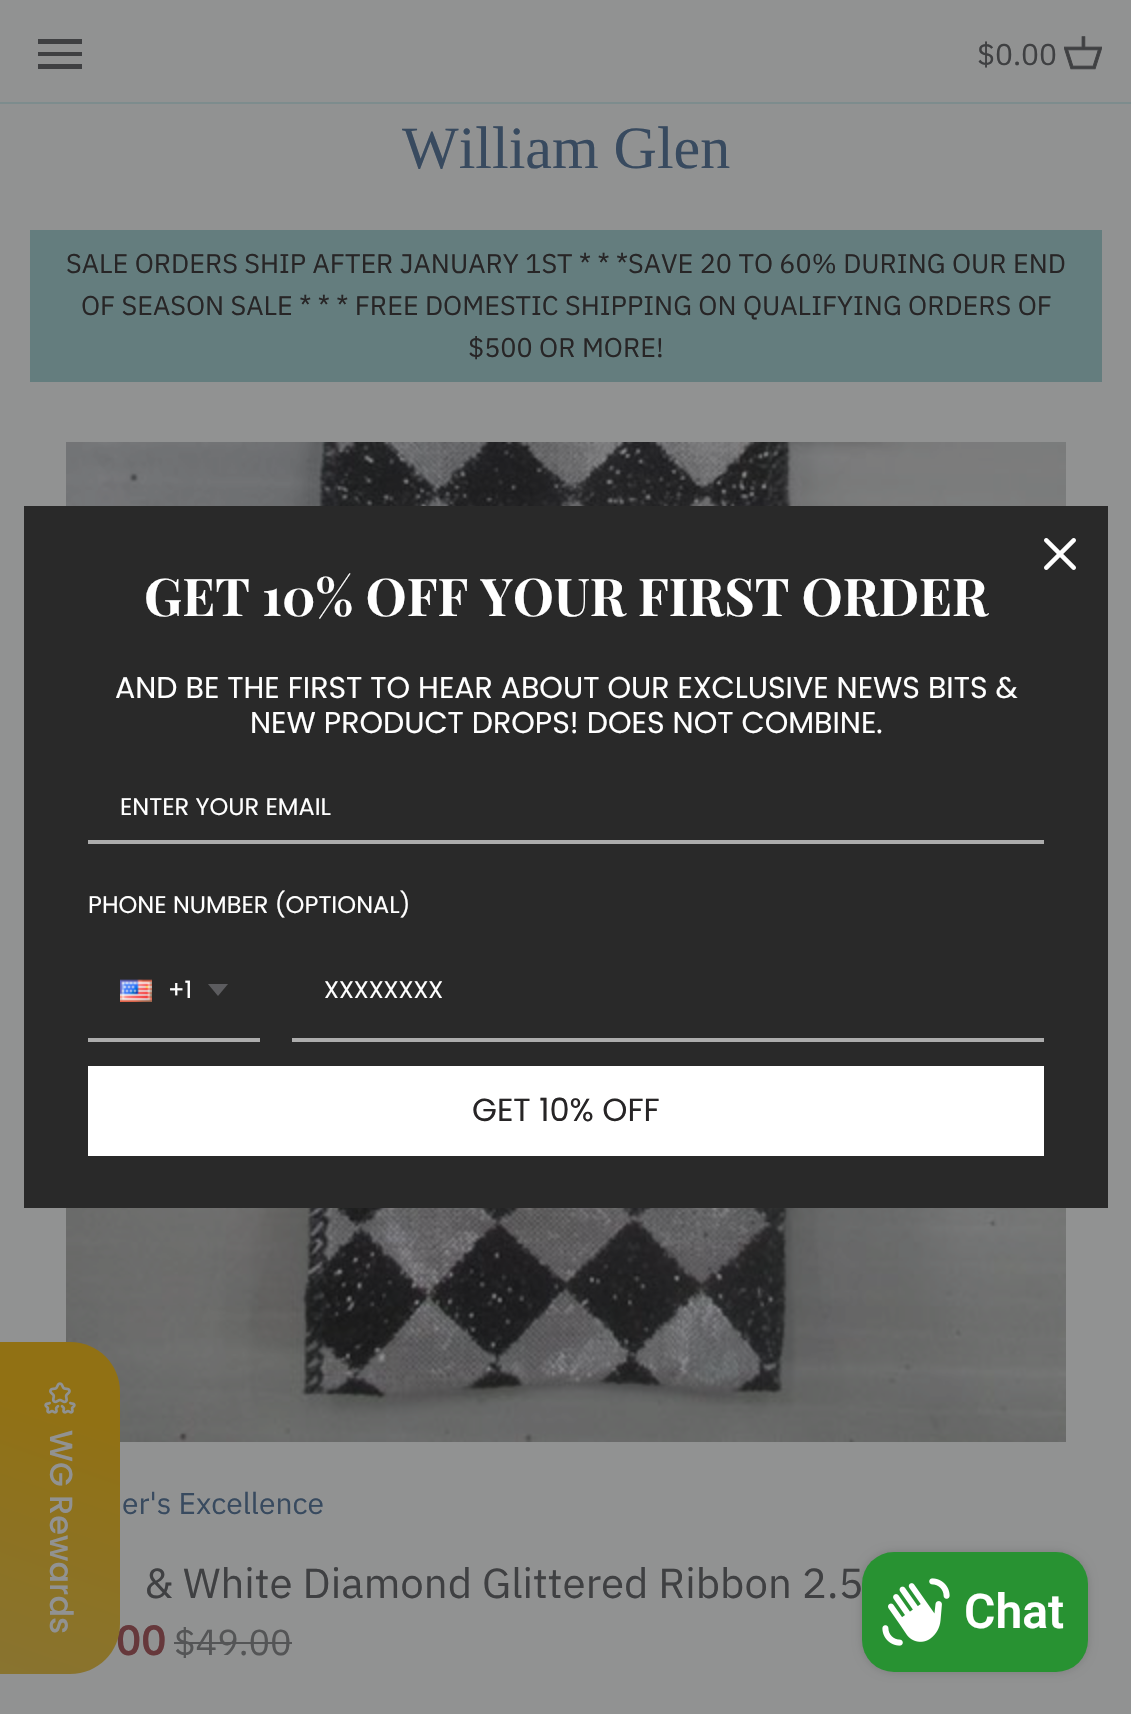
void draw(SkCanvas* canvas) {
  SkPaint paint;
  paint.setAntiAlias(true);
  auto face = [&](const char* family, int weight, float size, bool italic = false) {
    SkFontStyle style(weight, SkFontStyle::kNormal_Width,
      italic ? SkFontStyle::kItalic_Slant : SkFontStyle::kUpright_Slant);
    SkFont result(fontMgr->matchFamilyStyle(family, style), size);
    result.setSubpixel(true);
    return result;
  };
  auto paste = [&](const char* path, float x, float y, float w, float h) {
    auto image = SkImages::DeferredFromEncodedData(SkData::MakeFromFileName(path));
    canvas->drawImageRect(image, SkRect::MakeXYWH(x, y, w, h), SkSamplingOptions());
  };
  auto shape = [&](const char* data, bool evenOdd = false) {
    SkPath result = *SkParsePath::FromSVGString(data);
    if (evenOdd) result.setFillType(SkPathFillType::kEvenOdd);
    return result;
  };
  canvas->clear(0xff919292);
  paint.setColor(0xff7d8c8d);
  canvas->drawRect(SkRect::MakeXYWH(0, 102, 1131, 2), paint);
  paint.setColor(0xff3f4042);
  canvas->drawPath(shape("M38 69H82V64H38ZM38 56H82V52H38ZM38 39V44H82V39Z"), paint);
  paste("img/1.png", 1064, 36, 38, 34);
  paint.setColor(0xff647d7e);
  canvas->drawRect(SkRect::MakeXYWH(30, 230, 1072, 152), paint);
  paste("img/2.png", 66, 442, 1000, 1000);
  paint.setColor(0xff545556);
  canvas->drawRect(SkRect::MakeXYWH(174, 1642, 118, 2), paint);
  paint.setColor(0xff292929);
  canvas->drawRect(SkRect::MakeXYWH(24, 506, 1084, 702), paint);
  paste("img/3.png", 1044, 538, 32, 32);
  paint.setColor(0xffacacac);
  canvas->drawRect(SkRect::MakeXYWH(88, 840, 956, 4), paint);
  canvas->drawRect(SkRect::MakeXYWH(88, 1038, 172, 4), paint);
  paste("img/4.png", 120, 979, 32, 23);
  paint.setColor(0xff5c5c5f);
  canvas->drawPath(shape("M208 984H228L218 996Z", true), paint);
  paint.setColor(0xffacacac);
  canvas->drawRect(SkRect::MakeXYWH(292, 1038, 752, 4), paint);
  paint.setColor(0xffffffff);
  canvas->drawRect(SkRect::MakeXYWH(88, 1066, 956, 90), paint);
  paint.setColor(0x26000000);
  paint.setMaskFilter(SkMaskFilter::MakeBlur(kNormal_SkBlurStyle, 5));
  canvas->drawRoundRect(SkRect::MakeXYWH(862, 1552, 226, 120), 32, 32, paint);
  paint.setMaskFilter(nullptr);
  paint.setColor(0xff289232);
  canvas->drawRoundRect(SkRect::MakeXYWH(862, 1552, 226, 120), 32, 32, paint);
  paste("img/6.png", 882, 1578, 68, 68);
  auto f0 = face("IBM Plex Sans", 400, 30);
  paint.setColor(0xff3f4042);
  canvas->drawString("$0.00", 977, 65, f0, paint);
  auto f1 = face("Liberation Serif", 400, 60);
  paint.setColor(0xff384a5f);
  canvas->drawString("William Glen", 402, 168, f1, paint);
  auto f2 = face("IBM Plex Sans", 400, 27);
  paint.setColor(0xff272526);
  {
    const struct { const char* s; float x, y; } items[] = {
      {"SALE ORDERS SHIP AFTER JANUARY 1ST * * *SAVE 20 TO 60% DURING OUR END", 66, 273},
      {"OF SEASON SALE * * * FREE DOMESTIC SHIPPING ON QUALIFYING ORDERS OF", 81, 315},
      {"$500 OR MORE!", 468, 357},
    };
    for (auto [s, x, y] : items) {
      canvas->drawString(s, x, y, f2, paint);
    }
  }
  paint.setColor(0xff384a5f);
  canvas->drawString("er's Excellence", 122, 1514, f0, paint);
  auto f3 = face("IBM Plex Sans", 400, 42);
  paint.setColor(0xff3f4042);
  canvas->drawString("& White Diamond Glittered Ribbon 2.5", 144, 1598, f3, paint);
  auto f4 = face("Nunito", 700, 42);
  paint.setColor(0xff66383b);
  canvas->drawString("00", 116, 1655, f4, paint);
  auto f5 = face("IBM Plex Sans", 400, 36);
  paint.setColor(0xff545556);
  canvas->drawString("$49.00", 174, 1655, f5, paint);
  auto f6 = face("Playfair Display", 700, 52);
  paint.setColor(0xffffffff);
  canvas->drawString("GET 10% OFF YOUR FIRST ORDER", 144, 616, f6, paint);
  auto f7 = face("Poppins", 400, 30);
  canvas->drawString("AND BE THE FIRST TO HEAR ABOUT OUR EXCLUSIVE NEWS BITS &", 115, 698, f7, paint);
  canvas->drawString("NEW PRODUCT DROPS! DOES NOT COMBINE.", 250, 733, f7, paint);
  auto f8 = face("Poppins", 400, 24);
  {
    const struct { const char* s; float x, y; } items[] = {
      {"ENTER YOUR EMAIL", 120, 815},
      {"PHONE NUMBER (OPTIONAL)", 88, 913},
      {"+1", 168, 998},
      {"XXXXXXXX", 324, 998},
    };
    for (auto [s, x, y] : items) {
      canvas->drawString(s, x, y, f8, paint);
    }
  }
  auto f9 = face("Poppins", 400, 32);
  paint.setColor(0xff272526);
  canvas->drawString("GET 10% OFF", 472, 1121, f9, paint);
  {
    const SkColor colors[] = {0xff917114, 0xff84753f};
    const float stops[] = {0.17f, 1};
    const SkPoint ends[] = {{119, 1342}, {-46, 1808}};
    paint.setShader(SkGradientShader::MakeLinear(ends, colors, stops, 2, SkTileMode::kClamp));
    paint.setAlpha(255);
  }
  canvas->drawPath(shape("M120 1392V1624C120 1652 98 1674 70 1674H0V1342H70C98 1342 120 1364 120 1392Z"), paint);
  paste("img/5.png", 44, 1382, 32, 32);
  auto f10 = face("Poppins", 500, 32);
  paint.setShader(nullptr);
  paint.setColor(0xff919292);
  canvas->save();
  canvas->rotate(90, 50, 1430);
  canvas->drawString("WG Rewards", 50, 1430, f10, paint);
  canvas->restore();
  auto f11 = face("Roboto", 600, 48);
  paint.setColor(0xffffffff);
  canvas->drawString("Chat", 964, 1628, f11, paint);
}
